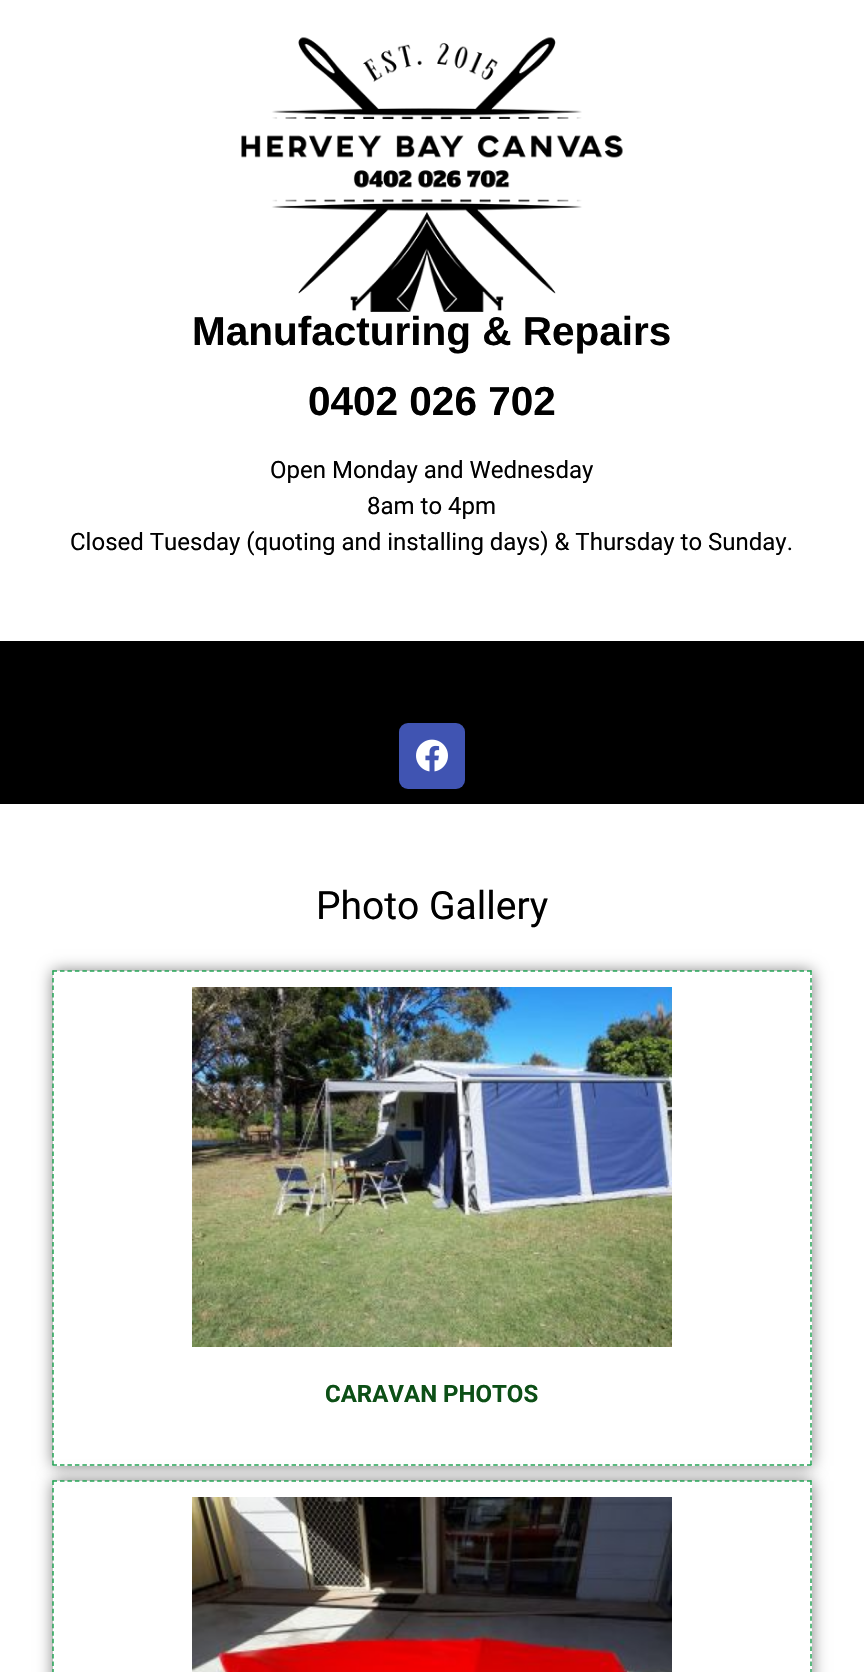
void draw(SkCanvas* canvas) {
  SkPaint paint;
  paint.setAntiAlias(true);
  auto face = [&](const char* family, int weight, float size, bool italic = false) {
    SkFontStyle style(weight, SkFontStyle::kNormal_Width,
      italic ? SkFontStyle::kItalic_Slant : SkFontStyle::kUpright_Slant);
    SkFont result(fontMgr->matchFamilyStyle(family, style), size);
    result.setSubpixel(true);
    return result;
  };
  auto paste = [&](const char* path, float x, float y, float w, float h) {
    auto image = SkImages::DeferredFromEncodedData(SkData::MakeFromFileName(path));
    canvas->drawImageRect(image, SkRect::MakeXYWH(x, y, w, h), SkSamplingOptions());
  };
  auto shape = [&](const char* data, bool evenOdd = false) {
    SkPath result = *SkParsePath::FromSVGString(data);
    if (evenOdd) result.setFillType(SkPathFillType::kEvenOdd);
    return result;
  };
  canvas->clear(0xffffffff);
  paste("img/1.png", 241, 37, 382, 275);
  paint.setColor(0xff000000);
  canvas->drawRect(SkRect::MakeXYWH(0, 641, 864, 163), paint);
  paint.setColor(0xff4054b2);
  canvas->drawRoundRect(SkRect::MakeXYWH(399, 723, 66, 66), 9, 9, paint);
  paste("img/2.png", 416, 739, 32, 33);
  canvas->save();
  canvas->clipPath(shape("M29 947H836V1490H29ZM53 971H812V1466H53Z", true), true);
  paint.setColor(0x80000000);
  paint.setMaskFilter(SkMaskFilter::MakeBlur(kNormal_SkBlurStyle, 7.5f));
  canvas->drawRect(SkRect::MakeXYWH(53, 971, 759, 495), paint);
  paint.setMaskFilter(nullptr);
  canvas->restore();
  paint.setStroke(true);
  paint.setStrokeWidth(1.5f);
  paint.setColor(0xff23a455);
  paint.setPathEffect(SkDashPathEffect::Make({{4.5f, 2.97f}}, 0));
  canvas->drawPath(shape("M52.5 971H811.5"), paint);
  paint.setPathEffect(nullptr);
  paint.setPathEffect(SkDashPathEffect::Make({{4.5f, 3.04f}}, 0));
  canvas->drawPath(shape("M811 970.5V1465.5"), paint);
  paint.setPathEffect(nullptr);
  paint.setPathEffect(SkDashPathEffect::Make({{4.5f, 2.97f}}, 0));
  canvas->drawPath(shape("M52.5 1465H811.5"), paint);
  paint.setPathEffect(nullptr);
  paint.setPathEffect(SkDashPathEffect::Make({{4.5f, 3.04f}}, 0));
  canvas->drawPath(shape("M53 970.5V1465.5"), paint);
  paint.setPathEffect(nullptr);
  paste("img/3.png", 192, 987, 480, 360);
  canvas->save();
  canvas->clipPath(shape("M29 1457H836V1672H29ZM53 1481H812V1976H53Z", true), true);
  paint.setStroke(false);
  paint.setColor(0x80000000);
  paint.setMaskFilter(SkMaskFilter::MakeBlur(kNormal_SkBlurStyle, 7.5f));
  canvas->drawRect(SkRect::MakeXYWH(53, 1481, 759, 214), paint);
  paint.setMaskFilter(nullptr);
  canvas->restore();
  paint.setStroke(true);
  paint.setColor(0xff23a455);
  paint.setPathEffect(SkDashPathEffect::Make({{4.5f, 2.97f}}, 0));
  canvas->drawPath(shape("M52.5 1481H811.5"), paint);
  paint.setPathEffect(nullptr);
  paint.setPathEffect(SkDashPathEffect::Make({{4.5f, 3.04f}}, 0));
  canvas->drawPath(shape("M811 1480.5V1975.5"), paint);
  paint.setPathEffect(nullptr);
  paint.setPathEffect(SkDashPathEffect::Make({{4.5f, 3.04f}}, 0));
  canvas->drawPath(shape("M53 1480.5V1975.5"), paint);
  paint.setPathEffect(nullptr);
  paste("img/4.png", 192, 1497, 480, 175);
  auto f0 = face("Liberation Sans", 700, 40.5f);
  paint.setStroke(false);
  paint.setColor(0xff000000);
  canvas->drawString("Manufacturing & Repairs", 192, 345, f0, paint);
  canvas->drawString("0402 026 702", 308, 415, f0, paint);
  auto f1 = face("Roboto", 400, 24);
  {
    const struct { const char* s; float x, y; } items[] = {
      {"Open Monday and Wednesday", 270, 478},
      {"8am to 4pm", 367, 514},
      {"Closed Tuesday (quoting and installing days) & Thursday to Sunday.", 70, 550},
    };
    for (auto [s, x, y] : items) {
      canvas->drawString(s, x, y, f1, paint);
    }
  }
  auto f2 = face("Roboto", 400, 39);
  canvas->drawString("Photo Gallery", 316, 919, f2, paint);
  auto f3 = face("Roboto", 700, 24);
  paint.setColor(0xff0c4f16);
  canvas->drawString("CARAVAN PHOTOS", 325, 1402, f3, paint);
}
